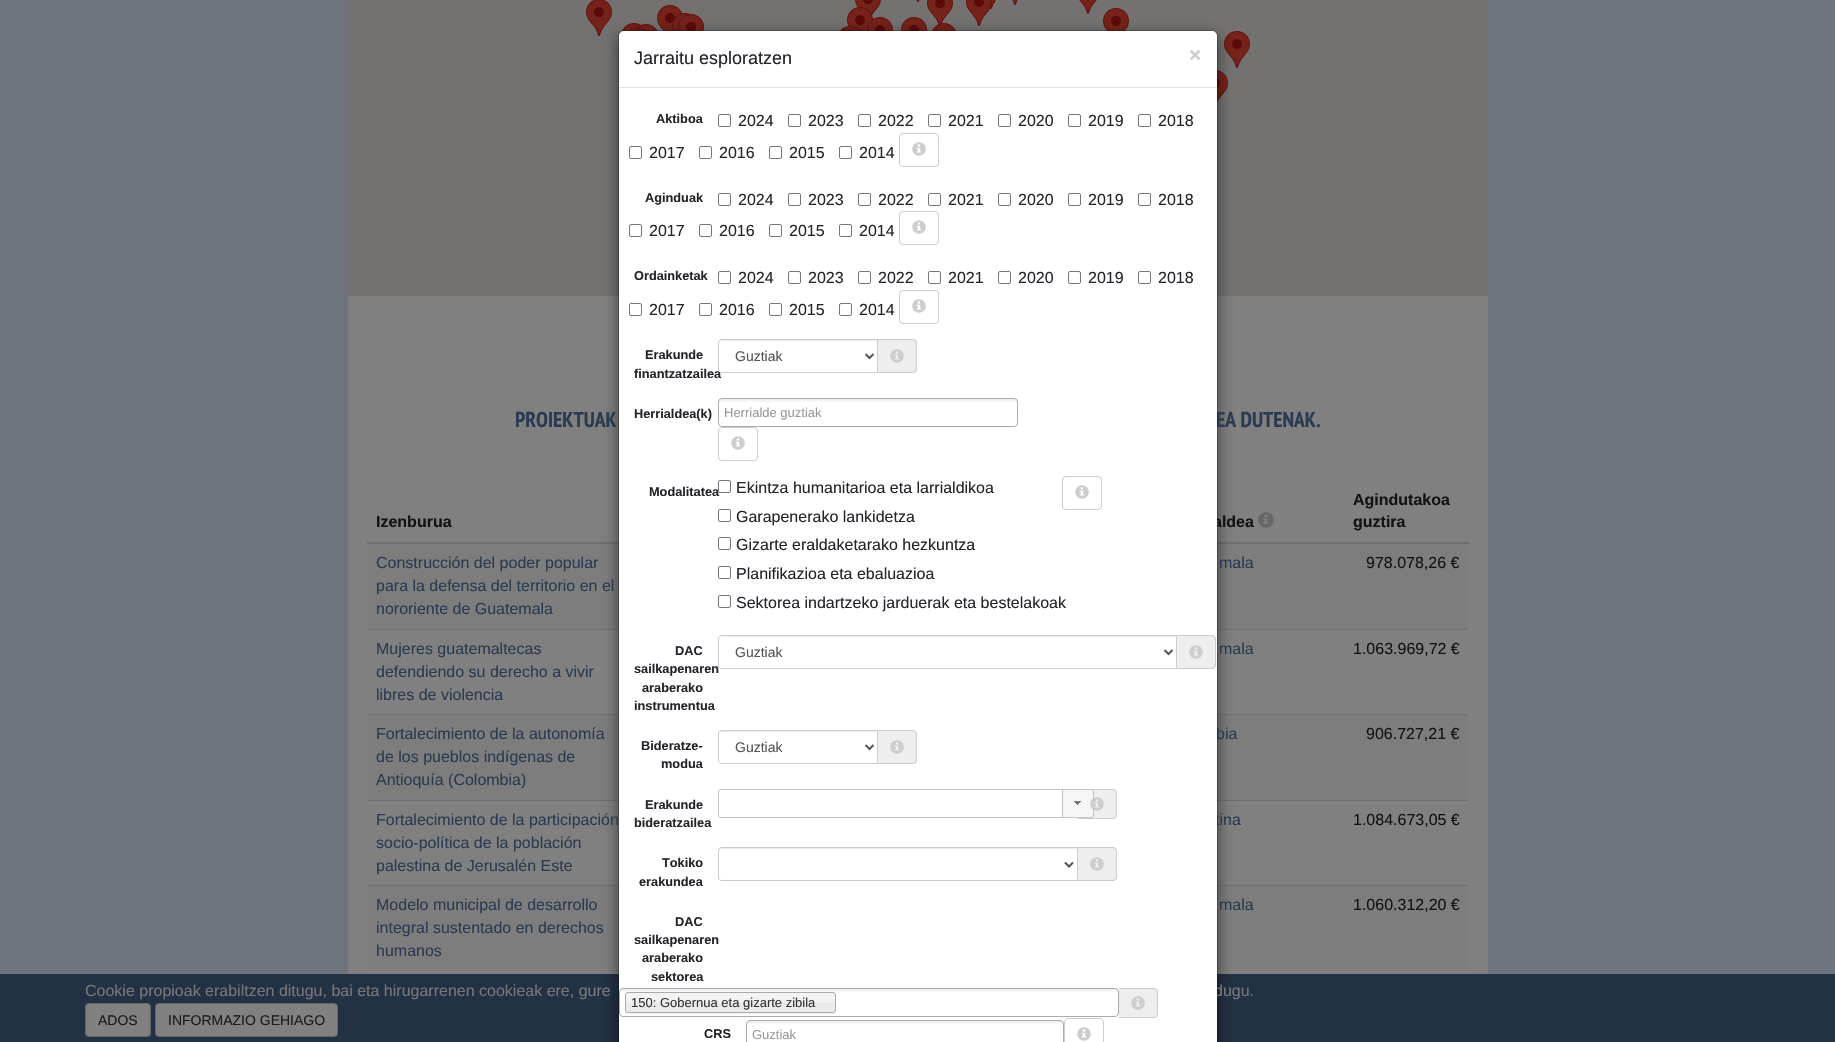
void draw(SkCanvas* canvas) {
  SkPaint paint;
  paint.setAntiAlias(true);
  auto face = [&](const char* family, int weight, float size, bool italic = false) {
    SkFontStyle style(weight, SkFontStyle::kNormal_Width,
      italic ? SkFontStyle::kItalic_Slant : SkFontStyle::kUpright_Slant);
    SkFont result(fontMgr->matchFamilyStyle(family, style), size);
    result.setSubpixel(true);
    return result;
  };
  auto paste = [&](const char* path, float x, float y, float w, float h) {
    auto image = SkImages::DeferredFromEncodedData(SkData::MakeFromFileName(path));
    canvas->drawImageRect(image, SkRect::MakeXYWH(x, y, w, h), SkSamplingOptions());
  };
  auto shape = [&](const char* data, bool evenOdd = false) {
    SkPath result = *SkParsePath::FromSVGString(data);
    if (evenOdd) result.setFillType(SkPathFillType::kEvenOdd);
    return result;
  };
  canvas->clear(0xff6e747d);
  paint.setColor(0xff808080);
  canvas->drawRect(SkRect::MakeXYWH(348, 296, 1140, 678), paint);
  paint.setColor(0xff737270);
  canvas->drawRect(SkRect::MakeXYWH(348, 0, 1140, 296), paint);
  paste("img/1.png", 586, 0, 26, 36);
  paste("img/2.png", 855, 0, 26, 15);
  paste("img/3.png", 916, 0, 4, 2);
  paste("img/4.png", 927, 0, 26, 25);
  paint.setColor(0xff61100e);
  canvas->drawRect(SkRect::MakeXYWH(991, 1, 4, 2), paint);
  paste("img/6.png", 990, 0, 6, 9);
  paste("img/5.png", 966, 0, 26, 26);
  paste("img/7.png", 1012, 0, 6, 5);
  paste("img/8.png", 1079, 0, 18, 14);
  paste("img/9.png", 657, 5, 26, 26);
  paste("img/10.png", 847, 7, 26, 24);
  paste("img/11.png", 1103, 8, 26, 23);
  paste("img/12.png", 672, 13, 20, 18);
  paste("img/13.png", 621, 23, 20, 9);
  paste("img/14.png", 636, 24, 22, 7);
  paste("img/15.png", 678, 14, 26, 17);
  paste("img/16.png", 840, 26, 20, 5);
  paste("img/17.png", 867, 17, 26, 14);
  paste("img/18.png", 901, 17, 26, 14);
  paste("img/19.png", 932, 23, 24, 8);
  paste("img/20.png", 630, 28, 16, 3);
  paste("img/21.png", 840, 29, 14, 2);
  paste("img/22.png", 1224, 31, 26, 37);
  paste("img/23.png", 1217, 70, 11, 33);
  {
    const struct { float x, y, w, h; SkColor color; } items[] = {
      {367, 542, 252, 2, 0xff6f6f6f},
      {1217, 542, 252, 2, 0xff6f6f6f},
      {368, 544, 1100, 85, 0xff7d7d7d},
      {367, 629, 252, 1, 0xff6f6f6f},
      {1217, 629, 251, 1, 0xff6f6f6f},
      {368, 715, 1100, 85, 0xff7d7d7d},
      {367, 714, 252, 1, 0xff6f6f6f},
      {1217, 714, 251, 1, 0xff6f6f6f},
      {367, 800, 252, 1, 0xff6f6f6f},
      {1217, 800, 251, 1, 0xff6f6f6f},
      {368, 886, 1100, 85, 0xff7d7d7d},
      {367, 885, 252, 1, 0xff6f6f6f},
      {1217, 885, 251, 1, 0xff6f6f6f},
      {0, 974, 1835, 68, 0xff233145},
    };
    for (auto [x, y, w, h, color] : items) {
      paint.setColor(color);
      canvas->drawRect(SkRect::MakeXYWH(x, y, w, h), paint);
    }
  }
  paint.setColor(0x80000000);
  paint.setMaskFilter(SkMaskFilter::MakeBlur(kNormal_SkBlurStyle, 7.5f));
  canvas->drawRoundRect(SkRect::MakeXYWH(618, 35, 600, 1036), 6, 6, paint);
  paint.setMaskFilter(nullptr);
  paste("img/28.png", 1258, 512, 16, 16);
  paint.setColor(0xff808080);
  canvas->drawRoundRect(SkRect::MakeXYWH(85.5f, 1003.5f, 65, 33), 3.5f, 3.5f, paint);
  paint.setStroke(true);
  paint.setStrokeWidth(1);
  paint.setColor(0xff666666);
  canvas->drawRoundRect(SkRect::MakeXYWH(85.5f, 1003.5f, 65, 33), 3.5f, 3.5f, paint);
  paint.setStroke(false);
  paint.setColor(0xff808080);
  canvas->drawRoundRect(SkRect::MakeXYWH(155.5f, 1003.5f, 182, 33), 3.5f, 3.5f, paint);
  paint.setStroke(true);
  paint.setColor(0xff666666);
  canvas->drawRoundRect(SkRect::MakeXYWH(155.5f, 1003.5f, 182, 33), 3.5f, 3.5f, paint);
  auto f0 = face("PT Sans Narrow", 700, 21.5f);
  paint.setStroke(false);
  paint.setColor(0xff2a3b51);
  canvas->drawString("PROIEKTUAK", 515, 427, f0, paint);
  canvas->drawString("EA DUTENAK.", 1216, 427, f0, paint);
  auto f1 = face("Liberation Sans", 700, 16);
  paint.setColor(0xff121215);
  {
    const struct { const char* s; float x, y; } items[] = {
      {"Izenburua", 376, 527},
      {"aldea", 1213, 527},
      {"Agindutakoa", 1353, 505},
      {"guztira", 1353, 527},
    };
    for (auto [s, x, y] : items) {
      canvas->drawString(s, x, y, f1, paint);
    }
  }
  auto f2 = face("Liberation Sans", 400, 16);
  paint.setColor(0xff2a3b51);
  {
    const struct { const char* s; float x, y; } items[] = {
      {"Construcción del poder popular", 376, 568},
      {"para la defensa del territorio en el", 376, 591},
      {"nororiente de Guatemala", 376, 614},
      {"mala", 1219, 568},
    };
    for (auto [s, x, y] : items) {
      canvas->drawString(s, x, y, f2, paint);
    }
  }
  paint.setColor(0xff121215);
  canvas->drawString("978.078,26 €", 1366, 568, f2, paint);
  paint.setColor(0xff2a3b51);
  {
    const struct { const char* s; float x, y; } items[] = {
      {"Mujeres guatemaltecas", 376, 654},
      {"defendiendo su derecho a vivir", 376, 677},
      {"libres de violencia", 376, 700},
      {"mala", 1219, 654},
    };
    for (auto [s, x, y] : items) {
      canvas->drawString(s, x, y, f2, paint);
    }
  }
  paint.setColor(0xff121215);
  canvas->drawString("1.063.969,72 €", 1353, 654, f2, paint);
  paint.setColor(0xff2a3b51);
  {
    const struct { const char* s; float x, y; } items[] = {
      {"Fortalecimiento de la autonomía", 376, 739},
      {"de los pueblos indígenas de", 376, 762},
      {"Antioquía (Colombia)", 376, 785},
      {"bia", 1216, 739},
    };
    for (auto [s, x, y] : items) {
      canvas->drawString(s, x, y, f2, paint);
    }
  }
  paint.setColor(0xff121215);
  canvas->drawString("906.727,21 €", 1366, 739, f2, paint);
  paint.setColor(0xff2a3b51);
  {
    const struct { const char* s; float x, y; } items[] = {
      {"Fortalecimiento de la participación", 376, 825},
      {"socio-política de la población", 376, 848},
      {"palestina de Jerusalén Este", 376, 871},
      {"tina", 1215, 825},
    };
    for (auto [s, x, y] : items) {
      canvas->drawString(s, x, y, f2, paint);
    }
  }
  paint.setColor(0xff121215);
  canvas->drawString("1.084.673,05 €", 1353, 825, f2, paint);
  paint.setColor(0xff2a3b51);
  {
    const struct { const char* s; float x, y; } items[] = {
      {"Modelo municipal de desarrollo", 376, 910},
      {"integral sustentado en derechos", 376, 933},
      {"humanos", 376, 956},
      {"mala", 1219, 910},
    };
    for (auto [s, x, y] : items) {
      canvas->drawString(s, x, y, f2, paint);
    }
  }
  paint.setColor(0xff121215);
  canvas->drawString("1.060.312,20 €", 1353, 910, f2, paint);
  paint.setColor(0xff777777);
  canvas->drawString("Cookie propioak erabiltzen ditugu, bai eta hirugarrenen cookieak ere, gure", 85, 996, f2, paint);
  canvas->drawString("dugu.", 1214, 996, f2, paint);
  paint.setColor(0xffffffff);
  canvas->drawPath(shape("M624 31H1212C1215 31 1217 33 1217 36V1042H619V36C619 33 621 31 624 31Z"), paint);
  paint.setStroke(true);
  paint.setColor(0x33000000);
  canvas->drawRoundRect(SkRect::MakeXYWH(618.5f, 30.5f, 599, 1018), 5.5f, 5.5f, paint);
  paint.setStroke(false);
  paint.setColor(0xffececec);
  canvas->drawPath(shape("M722 849H1077V848H722C720 848 719 849 719 851V852C719 850 720 849 722 849Z"), paint);
  paint.setStroke(true);
  paint.setColor(0xffcccccc);
  canvas->drawPath(shape("M722 847.5H1077.5V880.5H722C720 880.5 718.5 879 718.5 877V851C718.5 849 720 847.5 722 847.5Z"), paint);
  paint.setStrokeWidth(2);
  paint.setColor(0xff555555);
  canvas->drawPath(shape("M1065 862.5L1069 866.5L1073 862.5"), paint);
  paint.setStroke(false);
  paint.setColor(0xffececec);
  canvas->drawPath(shape("M722 732H877V731H721C719 731 719 733 719 735C719 733 720 732 722 732Z"), paint);
  paint.setStroke(true);
  paint.setStrokeWidth(1);
  paint.setColor(0xffcccccc);
  canvas->drawPath(shape("M722 730.5H877.5V763.5H722C720 763.5 718.5 762 718.5 760V734C718.5 732 720 730.5 722 730.5Z"), paint);
  auto f3 = face("Liberation Sans", 400, 14);
  paint.setStroke(false);
  paint.setColor(0xff555555);
  canvas->drawString("Guztiak", 735, 752, f3, paint);
  paint.setStroke(true);
  paint.setStrokeWidth(2);
  canvas->drawPath(shape("M865.5 745L869.5 749L873.5 745"), paint);
  paint.setStroke(false);
  paint.setColor(0xffececec);
  canvas->drawPath(shape("M722 637H1176V636H722C720 636 719 638 719 640C719 638 720 637 722 637Z"), paint);
  auto f4 = face("Liberation Sans", 700, 12.75f);
  paint.setColor(0xff24242a);
  canvas->drawString("sailkapenaren", 634, 673, f4, paint);
  paint.setStroke(true);
  paint.setStrokeWidth(1);
  paint.setColor(0xffcccccc);
  canvas->drawPath(shape("M722 635.5H1176.5V668.5H722C720 668.5 718.5 667 718.5 665V639C718.5 637 720 635.5 722 635.5Z"), paint);
  paint.setStroke(false);
  paint.setColor(0xff555555);
  canvas->drawString("Guztiak", 735, 657, f3, paint);
  paint.setStroke(true);
  paint.setStrokeWidth(2);
  canvas->drawPath(shape("M1164.5 650L1168.5 654L1172.5 650"), paint);
  paint.setStroke(false);
  paint.setColor(0xff24242a);
  canvas->drawString("finantzatzailea", 634, 378, f4, paint);
  paint.setColor(0xffffffff);
  canvas->drawPath(shape("M722 339H878V373H722C720 373 718 371 718 369V343C718 341 720 339 722 339Z"), paint);
  paint.setColor(0xffececec);
  canvas->drawPath(shape("M722 341H877V340H721C719 340 719 342 719 344C719 342 720 341 722 341Z"), paint);
  paint.setStroke(true);
  paint.setStrokeWidth(1);
  paint.setColor(0xffcccccc);
  canvas->drawPath(shape("M722 339.5H877.5V372.5H722C720 372.5 718.5 371 718.5 369V343C718.5 341 720 339.5 722 339.5Z"), paint);
  paint.setStroke(false);
  paint.setColor(0xff555555);
  canvas->drawString("Guztiak", 735, 361, f3, paint);
  paint.setStroke(true);
  paint.setStrokeWidth(2);
  canvas->drawPath(shape("M865.5 354L869.5 358L873.5 354"), paint);
  paint.setStrokeWidth(1);
  paint.setColor(0xffcccccc);
  canvas->drawRoundRect(SkRect::MakeXYWH(1064.5f, 1018.5f, 39, 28), 3.5f, 3.5f, paint);
  paste("img/24.png", 1077, 1027, 14, 14);
  canvas->save();
  canvas->clipPath(shape("M750 1020H1060C1062 1020 1064 1022 1064 1024V1045C1064 1047 1062 1049 1060 1049H750C748 1049 746 1047 746 1045V1024C746 1022 748 1020 750 1020Z"), true);
  paint.setStroke(false);
  {
    const SkColor colors[] = {0xffeeeeee, 0xffffffff};
    const float stops[] = {0.01f, 0.15f};
    const SkPoint ends[] = {{905, 1021}, {905, 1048}};
    paint.setShader(SkGradientShader::MakeLinear(ends, colors, stops, 2, SkTileMode::kClamp));
    paint.setAlpha(255);
  }
  canvas->drawRect(SkRect::MakeXYWH(746, 1021, 318, 21), paint);
  canvas->restore();
  paint.setStroke(true);
  paint.setShader(nullptr);
  paint.setColor(0xffaaaaaa);
  canvas->drawRoundRect(SkRect::MakeXYWH(746.5f, 1020.5f, 317, 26), 3.5f, 3.5f, paint);
  auto f5 = face("Liberation Sans", 400, 13);
  paint.setStroke(false);
  paint.setColor(0xff999999);
  canvas->drawString("Guztiak", 752, 1039, f5, paint);
  paint.setColor(0xff24242a);
  canvas->drawString("CRS", 704, 1038, f4, paint);
  paint.setColor(0xffeeeeee);
  canvas->drawPath(shape("M1119 988H1154C1156 988 1158 990 1158 992V1014C1158 1016 1156 1018 1154 1018H1119Z"), paint);
  paint.setColor(0xffcccccc);
  canvas->drawPath(shape("M1119 988H1154C1156 988 1158 990 1158 992V1014C1158 1016 1156 1018 1154 1018H1119ZM1119 989H1154C1155.5 989 1157 990.5 1157 992V1014C1157 1015.5 1155.5 1017 1154 1017H1119Z", true), paint);
  paste("img/25.png", 1131, 996, 14, 14);
  canvas->save();
  canvas->clipPath(shape("M623 988H1115C1117 988 1119 990 1119 992V1013C1119 1015 1117 1017 1115 1017H623C621 1017 619 1015 619 1013V992C619 990 621 988 623 988Z"), true);
  {
    const SkColor colors[] = {0xffeeeeee, 0xffffffff};
    const float stops[] = {0.01f, 0.15f};
    const SkPoint ends[] = {{869, 989}, {869, 1016}};
    paint.setShader(SkGradientShader::MakeLinear(ends, colors, stops, 2, SkTileMode::kClamp));
    paint.setAlpha(255);
  }
  canvas->drawRect(SkRect::MakeXYWH(619, 989, 500, 27), paint);
  canvas->restore();
  paint.setStroke(true);
  paint.setShader(nullptr);
  paint.setColor(0xffaaaaaa);
  canvas->drawRoundRect(SkRect::MakeXYWH(619.5f, 988.5f, 499, 28), 3.5f, 3.5f, paint);
  paint.setStroke(false);
  paint.setColor(0xfff2f2f2);
  canvas->drawPath(shape("M625 1010V1011C625 1013 626 1014 628 1014H833C835 1014 836 1013 836 1011V1010C836 1012 835 1013 833 1013H628C626 1013 625 1012 625 1010Z"), paint);
  {
    const SkColor colors[] = {0xfff4f4f4, 0xfff0f0f0, 0xffe8e8e8, 0xffeeeeee};
    const float stops[] = {0.2f, 0.5f, 0.52f, 1};
    const SkPoint ends[] = {{731, 993}, {731, 1012}};
    paint.setShader(SkGradientShader::MakeLinear(ends, colors, stops, 4, SkTileMode::kClamp));
    paint.setAlpha(255);
  }
  canvas->drawRoundRect(SkRect::MakeXYWH(626, 993, 209, 19), 2, 2, paint);
  paint.setStroke(true);
  paint.setShader(nullptr);
  paint.setColor(0xffaaaaaa);
  canvas->drawRoundRect(SkRect::MakeXYWH(625.5f, 992.5f, 210, 20), 2.5f, 2.5f, paint);
  paint.setStroke(false);
  paint.setColor(0xff333333);
  canvas->drawString("150: Gobernua eta gizarte zibila", 631, 1007, f5, paint);
  paint.setColor(0xff24242a);
  {
    const struct { const char* s; float x, y; } items[] = {
      {"sektorea", 651, 981},
      {"araberako", 642, 962},
      {"sailkapenaren", 634, 944},
      {"DAC", 675, 926},
    };
    for (auto [s, x, y] : items) {
      canvas->drawString(s, x, y, f4, paint);
    }
  }
  paint.setColor(0xffeeeeee);
  canvas->drawPath(shape("M1078 847H1113C1115 847 1117 849 1117 851V877C1117 879 1115 881 1113 881H1078Z"), paint);
  paint.setColor(0xffcccccc);
  canvas->drawPath(shape("M1078 847H1113C1115 847 1117 849 1117 851V877C1117 879 1115 881 1113 881H1078ZM1078 848H1113C1114.5 848 1116 849.5 1116 851V877C1116 878.5 1114.5 880 1113 880H1078Z", true), paint);
  paste("img/25.png", 1090, 857, 14, 14);
  paint.setColor(0xff24242a);
  canvas->drawString("erakundea", 639, 886, f4, paint);
  canvas->drawString("Tokiko", 662, 867, f4, paint);
  paint.setStroke(true);
  paint.setColor(0xffc5c5c5);
  canvas->drawPath(shape("M721 789.5H1062.5V817.5H721C719.5 817.5 718.5 816.5 718.5 815V792C718.5 790.5 719.5 789.5 721 789.5Z"), paint);
  paint.setStroke(false);
  paint.setColor(0xffeeeeee);
  canvas->drawPath(shape("M1078 789H1113C1115 789 1117 791 1117 793V815C1117 817 1115 819 1113 819H1078Z"), paint);
  paint.setColor(0xffcccccc);
  canvas->drawPath(shape("M1078 789H1113C1115 789 1117 791 1117 793V815C1117 817 1115 819 1113 819H1078ZM1078 790H1113C1114.5 790 1116 791.5 1116 793V815C1116 816.5 1114.5 818 1113 818H1078Z", true), paint);
  paint.setColor(0xfff6f6f6);
  canvas->drawPath(shape("M1062.5 789.5H1091C1092.5 789.5 1093.5 790.5 1093.5 792V815C1093.5 816.5 1092.5 817.5 1091 817.5H1062.5Z"), paint);
  paint.setStroke(true);
  paint.setColor(0xffc5c5c5);
  canvas->drawPath(shape("M1062.5 789.5H1091C1092.5 789.5 1093.5 790.5 1093.5 792V815C1093.5 816.5 1092.5 817.5 1091 817.5H1062.5Z"), paint);
  paste("img/27.png", 1090, 797, 14, 14);
  paste("img/26.png", 1074, 801, 7, 4);
  paint.setStroke(false);
  paint.setColor(0xff24242a);
  canvas->drawString("bideratzailea", 634, 827, f4, paint);
  canvas->drawString("Erakunde", 645, 809, f4, paint);
  paint.setColor(0xffeeeeee);
  canvas->drawPath(shape("M878 730H913C915 730 917 732 917 734V760C917 762 915 764 913 764H878Z"), paint);
  paint.setColor(0xffcccccc);
  canvas->drawPath(shape("M878 730H913C915 730 917 732 917 734V760C917 762 915 764 913 764H878ZM878 731H913C914.5 731 916 732.5 916 734V760C916 761.5 914.5 763 913 763H878Z", true), paint);
  paste("img/25.png", 890, 740, 14, 14);
  paint.setColor(0xff24242a);
  canvas->drawString("modua", 661, 768, f4, paint);
  canvas->drawString("Bideratze-", 641, 750, f4, paint);
  paint.setColor(0xffeeeeee);
  canvas->drawPath(shape("M1177 635H1212C1214 635 1216 637 1216 639V665C1216 667 1214 669 1212 669H1177Z"), paint);
  paint.setColor(0xffcccccc);
  canvas->drawPath(shape("M1177 635H1212C1214 635 1216 637 1216 639V665C1216 667 1214 669 1212 669H1177ZM1177 636H1212C1213.5 636 1215 637.5 1215 639V665C1215 666.5 1213.5 668 1212 668H1177Z", true), paint);
  paste("img/25.png", 1189, 645, 14, 14);
  paint.setColor(0xff24242a);
  {
    const struct { const char* s; float x, y; } items[] = {
      {"instrumentua", 634, 710},
      {"araberako", 642, 692},
      {"DAC", 675, 655},
    };
    for (auto [s, x, y] : items) {
      canvas->drawString(s, x, y, f4, paint);
    }
  }
  canvas->drawString("Sektorea indartzeko jarduerak eta bestelakoak", 736, 608, f2, paint);
  paint.setStroke(true);
  paint.setColor(0xff767676);
  canvas->drawRoundRect(SkRect::MakeXYWH(718.5f, 595.5f, 12, 12), 1.5f, 1.5f, paint);
  paint.setStroke(false);
  paint.setColor(0xff24242a);
  canvas->drawString("Planifikazioa eta ebaluazioa", 736, 579, f2, paint);
  paint.setStroke(true);
  paint.setColor(0xff767676);
  canvas->drawRoundRect(SkRect::MakeXYWH(718.5f, 566.5f, 12, 12), 1.5f, 1.5f, paint);
  paint.setStroke(false);
  paint.setColor(0xff24242a);
  canvas->drawString("Gizarte eraldaketarako hezkuntza", 736, 550, f2, paint);
  paint.setStroke(true);
  paint.setColor(0xff767676);
  canvas->drawRoundRect(SkRect::MakeXYWH(718.5f, 537.5f, 12, 12), 1.5f, 1.5f, paint);
  paint.setStroke(false);
  paint.setColor(0xff24242a);
  canvas->drawString("Garapenerako lankidetza", 736, 522, f2, paint);
  paint.setStroke(true);
  paint.setColor(0xff767676);
  canvas->drawRoundRect(SkRect::MakeXYWH(718.5f, 509.5f, 12, 12), 1.5f, 1.5f, paint);
  paint.setStroke(false);
  paint.setColor(0xff24242a);
  canvas->drawString("Ekintza humanitarioa eta larrialdikoa", 736, 493, f2, paint);
  canvas->drawString("Modalitatea", 649, 496, f4, paint);
  paint.setColor(0xffffffff);
  canvas->drawRoundRect(SkRect::MakeXYWH(718.5f, 480.5f, 12, 12), 1.5f, 1.5f, paint);
  paint.setStroke(true);
  paint.setColor(0xff767676);
  canvas->drawRoundRect(SkRect::MakeXYWH(718.5f, 480.5f, 12, 12), 1.5f, 1.5f, paint);
  paint.setColor(0xffcccccc);
  canvas->drawRoundRect(SkRect::MakeXYWH(1062.5f, 476.5f, 39, 33), 3.5f, 3.5f, paint);
  paste("img/24.png", 1075, 485, 14, 14);
  canvas->drawRoundRect(SkRect::MakeXYWH(718.5f, 427.5f, 39, 33), 3.5f, 3.5f, paint);
  paste("img/24.png", 731, 436, 14, 14);
  canvas->save();
  canvas->clipPath(shape("M722 398H1014C1016 398 1018 400 1018 402V423C1018 425 1016 427 1014 427H722C720 427 718 425 718 423V402C718 400 720 398 722 398Z"), true);
  paint.setStroke(false);
  {
    const SkColor colors[] = {0xffeeeeee, 0xffffffff};
    const float stops[] = {0.01f, 0.15f};
    const SkPoint ends[] = {{868, 399}, {868, 426}};
    paint.setShader(SkGradientShader::MakeLinear(ends, colors, stops, 2, SkTileMode::kClamp));
    paint.setAlpha(255);
  }
  canvas->drawRect(SkRect::MakeXYWH(718, 399, 300, 27), paint);
  canvas->restore();
  paint.setStroke(true);
  paint.setShader(nullptr);
  paint.setColor(0xffaaaaaa);
  canvas->drawRoundRect(SkRect::MakeXYWH(718.5f, 398.5f, 299, 28), 3.5f, 3.5f, paint);
  paint.setStroke(false);
  paint.setColor(0xff999999);
  canvas->drawString("Herrialde guztiak", 724, 417, f5, paint);
  paint.setColor(0xff24242a);
  canvas->drawString("Herrialdea(k)", 634, 418, f4, paint);
  paint.setColor(0xffeeeeee);
  canvas->drawPath(shape("M878 339H913C915 339 917 341 917 343V369C917 371 915 373 913 373H878Z"), paint);
  paint.setColor(0xffcccccc);
  canvas->drawPath(shape("M878 339H913C915 339 917 341 917 343V369C917 371 915 373 913 373H878ZM878 340H913C914.5 340 916 341.5 916 343V369C916 370.5 914.5 372 913 372H878Z", true), paint);
  paste("img/25.png", 890, 349, 14, 14);
  paint.setColor(0xff24242a);
  canvas->drawString("Erakunde", 645, 359, f4, paint);
  paint.setStroke(true);
  paint.setColor(0xffcccccc);
  canvas->drawRoundRect(SkRect::MakeXYWH(899.5f, 290.5f, 39, 33), 3.5f, 3.5f, paint);
  paste("img/24.png", 912, 299, 14, 14);
  paint.setColor(0xff767676);
  canvas->drawRoundRect(SkRect::MakeXYWH(839.5f, 303.5f, 12, 12), 1.5f, 1.5f, paint);
  paint.setStroke(false);
  paint.setColor(0xff24242a);
  canvas->drawString("2014", 859, 315, f2, paint);
  paint.setStroke(true);
  paint.setColor(0xff767676);
  canvas->drawRoundRect(SkRect::MakeXYWH(769.5f, 303.5f, 12, 12), 1.5f, 1.5f, paint);
  paint.setStroke(false);
  paint.setColor(0xff24242a);
  canvas->drawString("2015", 789, 315, f2, paint);
  paint.setStroke(true);
  paint.setColor(0xff767676);
  canvas->drawRoundRect(SkRect::MakeXYWH(699.5f, 303.5f, 12, 12), 1.5f, 1.5f, paint);
  paint.setStroke(false);
  paint.setColor(0xff24242a);
  canvas->drawString("2016", 719, 315, f2, paint);
  paint.setStroke(true);
  paint.setColor(0xff767676);
  canvas->drawRoundRect(SkRect::MakeXYWH(629.5f, 303.5f, 12, 12), 1.5f, 1.5f, paint);
  paint.setStroke(false);
  paint.setColor(0xff24242a);
  canvas->drawString("2017", 649, 315, f2, paint);
  paint.setStroke(true);
  paint.setColor(0xff767676);
  canvas->drawRoundRect(SkRect::MakeXYWH(1138.5f, 271.5f, 12, 12), 1.5f, 1.5f, paint);
  paint.setStroke(false);
  paint.setColor(0xff24242a);
  canvas->drawString("2018", 1158, 283, f2, paint);
  paint.setStroke(true);
  paint.setColor(0xff767676);
  canvas->drawRoundRect(SkRect::MakeXYWH(1068.5f, 271.5f, 12, 12), 1.5f, 1.5f, paint);
  paint.setStroke(false);
  paint.setColor(0xff24242a);
  canvas->drawString("2019", 1088, 283, f2, paint);
  paint.setStroke(true);
  paint.setColor(0xff767676);
  canvas->drawRoundRect(SkRect::MakeXYWH(998.5f, 271.5f, 12, 12), 1.5f, 1.5f, paint);
  paint.setStroke(false);
  paint.setColor(0xff24242a);
  canvas->drawString("2020", 1018, 283, f2, paint);
  paint.setStroke(true);
  paint.setColor(0xff767676);
  canvas->drawRoundRect(SkRect::MakeXYWH(928.5f, 271.5f, 12, 12), 1.5f, 1.5f, paint);
  paint.setStroke(false);
  paint.setColor(0xff24242a);
  canvas->drawString("2021", 948, 283, f2, paint);
  paint.setStroke(true);
  paint.setColor(0xff767676);
  canvas->drawRoundRect(SkRect::MakeXYWH(858.5f, 271.5f, 12, 12), 1.5f, 1.5f, paint);
  paint.setStroke(false);
  paint.setColor(0xff24242a);
  canvas->drawString("2022", 878, 283, f2, paint);
  paint.setStroke(true);
  paint.setColor(0xff767676);
  canvas->drawRoundRect(SkRect::MakeXYWH(788.5f, 271.5f, 12, 12), 1.5f, 1.5f, paint);
  paint.setStroke(false);
  paint.setColor(0xff24242a);
  canvas->drawString("2023", 808, 283, f2, paint);
  paint.setStroke(true);
  paint.setColor(0xff767676);
  canvas->drawRoundRect(SkRect::MakeXYWH(718.5f, 271.5f, 12, 12), 1.5f, 1.5f, paint);
  paint.setStroke(false);
  paint.setColor(0xff24242a);
  canvas->drawString("2024", 738, 283, f2, paint);
  canvas->drawString("Ordainketak", 634, 280, f4, paint);
  paint.setStroke(true);
  paint.setColor(0xffcccccc);
  canvas->drawRoundRect(SkRect::MakeXYWH(899.5f, 211.5f, 39, 33), 3.5f, 3.5f, paint);
  paste("img/24.png", 912, 220, 14, 14);
  paint.setColor(0xff767676);
  canvas->drawRoundRect(SkRect::MakeXYWH(839.5f, 224.5f, 12, 12), 1.5f, 1.5f, paint);
  paint.setStroke(false);
  paint.setColor(0xff24242a);
  canvas->drawString("2014", 859, 236, f2, paint);
  paint.setStroke(true);
  paint.setColor(0xff767676);
  canvas->drawRoundRect(SkRect::MakeXYWH(769.5f, 224.5f, 12, 12), 1.5f, 1.5f, paint);
  paint.setStroke(false);
  paint.setColor(0xff24242a);
  canvas->drawString("2015", 789, 236, f2, paint);
  paint.setStroke(true);
  paint.setColor(0xff767676);
  canvas->drawRoundRect(SkRect::MakeXYWH(699.5f, 224.5f, 12, 12), 1.5f, 1.5f, paint);
  paint.setStroke(false);
  paint.setColor(0xff24242a);
  canvas->drawString("2016", 719, 236, f2, paint);
  paint.setStroke(true);
  paint.setColor(0xff767676);
  canvas->drawRoundRect(SkRect::MakeXYWH(629.5f, 224.5f, 12, 12), 1.5f, 1.5f, paint);
  paint.setStroke(false);
  paint.setColor(0xff24242a);
  canvas->drawString("2017", 649, 236, f2, paint);
  paint.setStroke(true);
  paint.setColor(0xff767676);
  canvas->drawRoundRect(SkRect::MakeXYWH(1138.5f, 193.5f, 12, 12), 1.5f, 1.5f, paint);
  paint.setStroke(false);
  paint.setColor(0xff24242a);
  canvas->drawString("2018", 1158, 205, f2, paint);
  paint.setStroke(true);
  paint.setColor(0xff767676);
  canvas->drawRoundRect(SkRect::MakeXYWH(1068.5f, 193.5f, 12, 12), 1.5f, 1.5f, paint);
  paint.setStroke(false);
  paint.setColor(0xff24242a);
  canvas->drawString("2019", 1088, 205, f2, paint);
  paint.setStroke(true);
  paint.setColor(0xff767676);
  canvas->drawRoundRect(SkRect::MakeXYWH(998.5f, 193.5f, 12, 12), 1.5f, 1.5f, paint);
  paint.setStroke(false);
  paint.setColor(0xff24242a);
  canvas->drawString("2020", 1018, 205, f2, paint);
  paint.setStroke(true);
  paint.setColor(0xff767676);
  canvas->drawRoundRect(SkRect::MakeXYWH(928.5f, 193.5f, 12, 12), 1.5f, 1.5f, paint);
  paint.setStroke(false);
  paint.setColor(0xff24242a);
  canvas->drawString("2021", 948, 205, f2, paint);
  paint.setStroke(true);
  paint.setColor(0xff767676);
  canvas->drawRoundRect(SkRect::MakeXYWH(858.5f, 193.5f, 12, 12), 1.5f, 1.5f, paint);
  paint.setStroke(false);
  paint.setColor(0xff24242a);
  canvas->drawString("2022", 878, 205, f2, paint);
  paint.setStroke(true);
  paint.setColor(0xff767676);
  canvas->drawRoundRect(SkRect::MakeXYWH(788.5f, 193.5f, 12, 12), 1.5f, 1.5f, paint);
  paint.setStroke(false);
  paint.setColor(0xff24242a);
  canvas->drawString("2023", 808, 205, f2, paint);
  paint.setStroke(true);
  paint.setColor(0xff767676);
  canvas->drawRoundRect(SkRect::MakeXYWH(718.5f, 193.5f, 12, 12), 1.5f, 1.5f, paint);
  paint.setStroke(false);
  paint.setColor(0xff24242a);
  canvas->drawString("2024", 738, 205, f2, paint);
  canvas->drawString("Aginduak", 645, 202, f4, paint);
  paint.setStroke(true);
  paint.setColor(0xffcccccc);
  canvas->drawRoundRect(SkRect::MakeXYWH(899.5f, 133.5f, 39, 33), 3.5f, 3.5f, paint);
  paste("img/24.png", 912, 142, 14, 14);
  paint.setColor(0xff767676);
  canvas->drawRoundRect(SkRect::MakeXYWH(839.5f, 146.5f, 12, 12), 1.5f, 1.5f, paint);
  paint.setStroke(false);
  paint.setColor(0xff24242a);
  canvas->drawString("2014", 859, 158, f2, paint);
  paint.setStroke(true);
  paint.setColor(0xff767676);
  canvas->drawRoundRect(SkRect::MakeXYWH(769.5f, 146.5f, 12, 12), 1.5f, 1.5f, paint);
  paint.setStroke(false);
  paint.setColor(0xff24242a);
  canvas->drawString("2015", 789, 158, f2, paint);
  paint.setStroke(true);
  paint.setColor(0xff767676);
  canvas->drawRoundRect(SkRect::MakeXYWH(699.5f, 146.5f, 12, 12), 1.5f, 1.5f, paint);
  paint.setStroke(false);
  paint.setColor(0xff24242a);
  canvas->drawString("2016", 719, 158, f2, paint);
  paint.setStroke(true);
  paint.setColor(0xff767676);
  canvas->drawRoundRect(SkRect::MakeXYWH(629.5f, 146.5f, 12, 12), 1.5f, 1.5f, paint);
  paint.setStroke(false);
  paint.setColor(0xff24242a);
  canvas->drawString("2017", 649, 158, f2, paint);
  paint.setStroke(true);
  paint.setColor(0xff767676);
  canvas->drawRoundRect(SkRect::MakeXYWH(1138.5f, 114.5f, 12, 12), 1.5f, 1.5f, paint);
  paint.setStroke(false);
  paint.setColor(0xff24242a);
  canvas->drawString("2018", 1158, 126, f2, paint);
  paint.setStroke(true);
  paint.setColor(0xff767676);
  canvas->drawRoundRect(SkRect::MakeXYWH(1068.5f, 114.5f, 12, 12), 1.5f, 1.5f, paint);
  paint.setStroke(false);
  paint.setColor(0xff24242a);
  canvas->drawString("2019", 1088, 126, f2, paint);
  paint.setStroke(true);
  paint.setColor(0xff767676);
  canvas->drawRoundRect(SkRect::MakeXYWH(998.5f, 114.5f, 12, 12), 1.5f, 1.5f, paint);
  paint.setStroke(false);
  paint.setColor(0xff24242a);
  canvas->drawString("2020", 1018, 126, f2, paint);
  paint.setStroke(true);
  paint.setColor(0xff767676);
  canvas->drawRoundRect(SkRect::MakeXYWH(928.5f, 114.5f, 12, 12), 1.5f, 1.5f, paint);
  paint.setStroke(false);
  paint.setColor(0xff24242a);
  canvas->drawString("2021", 948, 126, f2, paint);
  paint.setStroke(true);
  paint.setColor(0xff767676);
  canvas->drawRoundRect(SkRect::MakeXYWH(858.5f, 114.5f, 12, 12), 1.5f, 1.5f, paint);
  paint.setStroke(false);
  paint.setColor(0xff24242a);
  canvas->drawString("2022", 878, 126, f2, paint);
  paint.setStroke(true);
  paint.setColor(0xff767676);
  canvas->drawRoundRect(SkRect::MakeXYWH(788.5f, 114.5f, 12, 12), 1.5f, 1.5f, paint);
  paint.setStroke(false);
  paint.setColor(0xff24242a);
  canvas->drawString("2023", 808, 126, f2, paint);
  paint.setStroke(true);
  paint.setColor(0xff767676);
  canvas->drawRoundRect(SkRect::MakeXYWH(718.5f, 114.5f, 12, 12), 1.5f, 1.5f, paint);
  paint.setStroke(false);
  paint.setColor(0xff24242a);
  canvas->drawString("2024", 738, 126, f2, paint);
  canvas->drawString("Aktiboa", 656, 123, f4, paint);
  auto f6 = face("Liberation Sans", 700, 21);
  paint.setColor(0xffcccccc);
  canvas->drawString("×", 1189, 62, f6, paint);
  auto f7 = face("Liberation Sans", 400, 18);
  paint.setColor(0xff24242a);
  canvas->drawString("Jarraitu esploratzen", 634, 64, f7, paint);
  paint.setColor(0xffe5e5e5);
  canvas->drawRect(SkRect::MakeXYWH(619, 87, 598, 1), paint);
  paint.setColor(0xff1a1a1a);
  canvas->drawString("ADOS", 98, 1025, f3, paint);
  canvas->drawString("INFORMAZIO GEHIAGO", 168, 1025, f3, paint);
}
